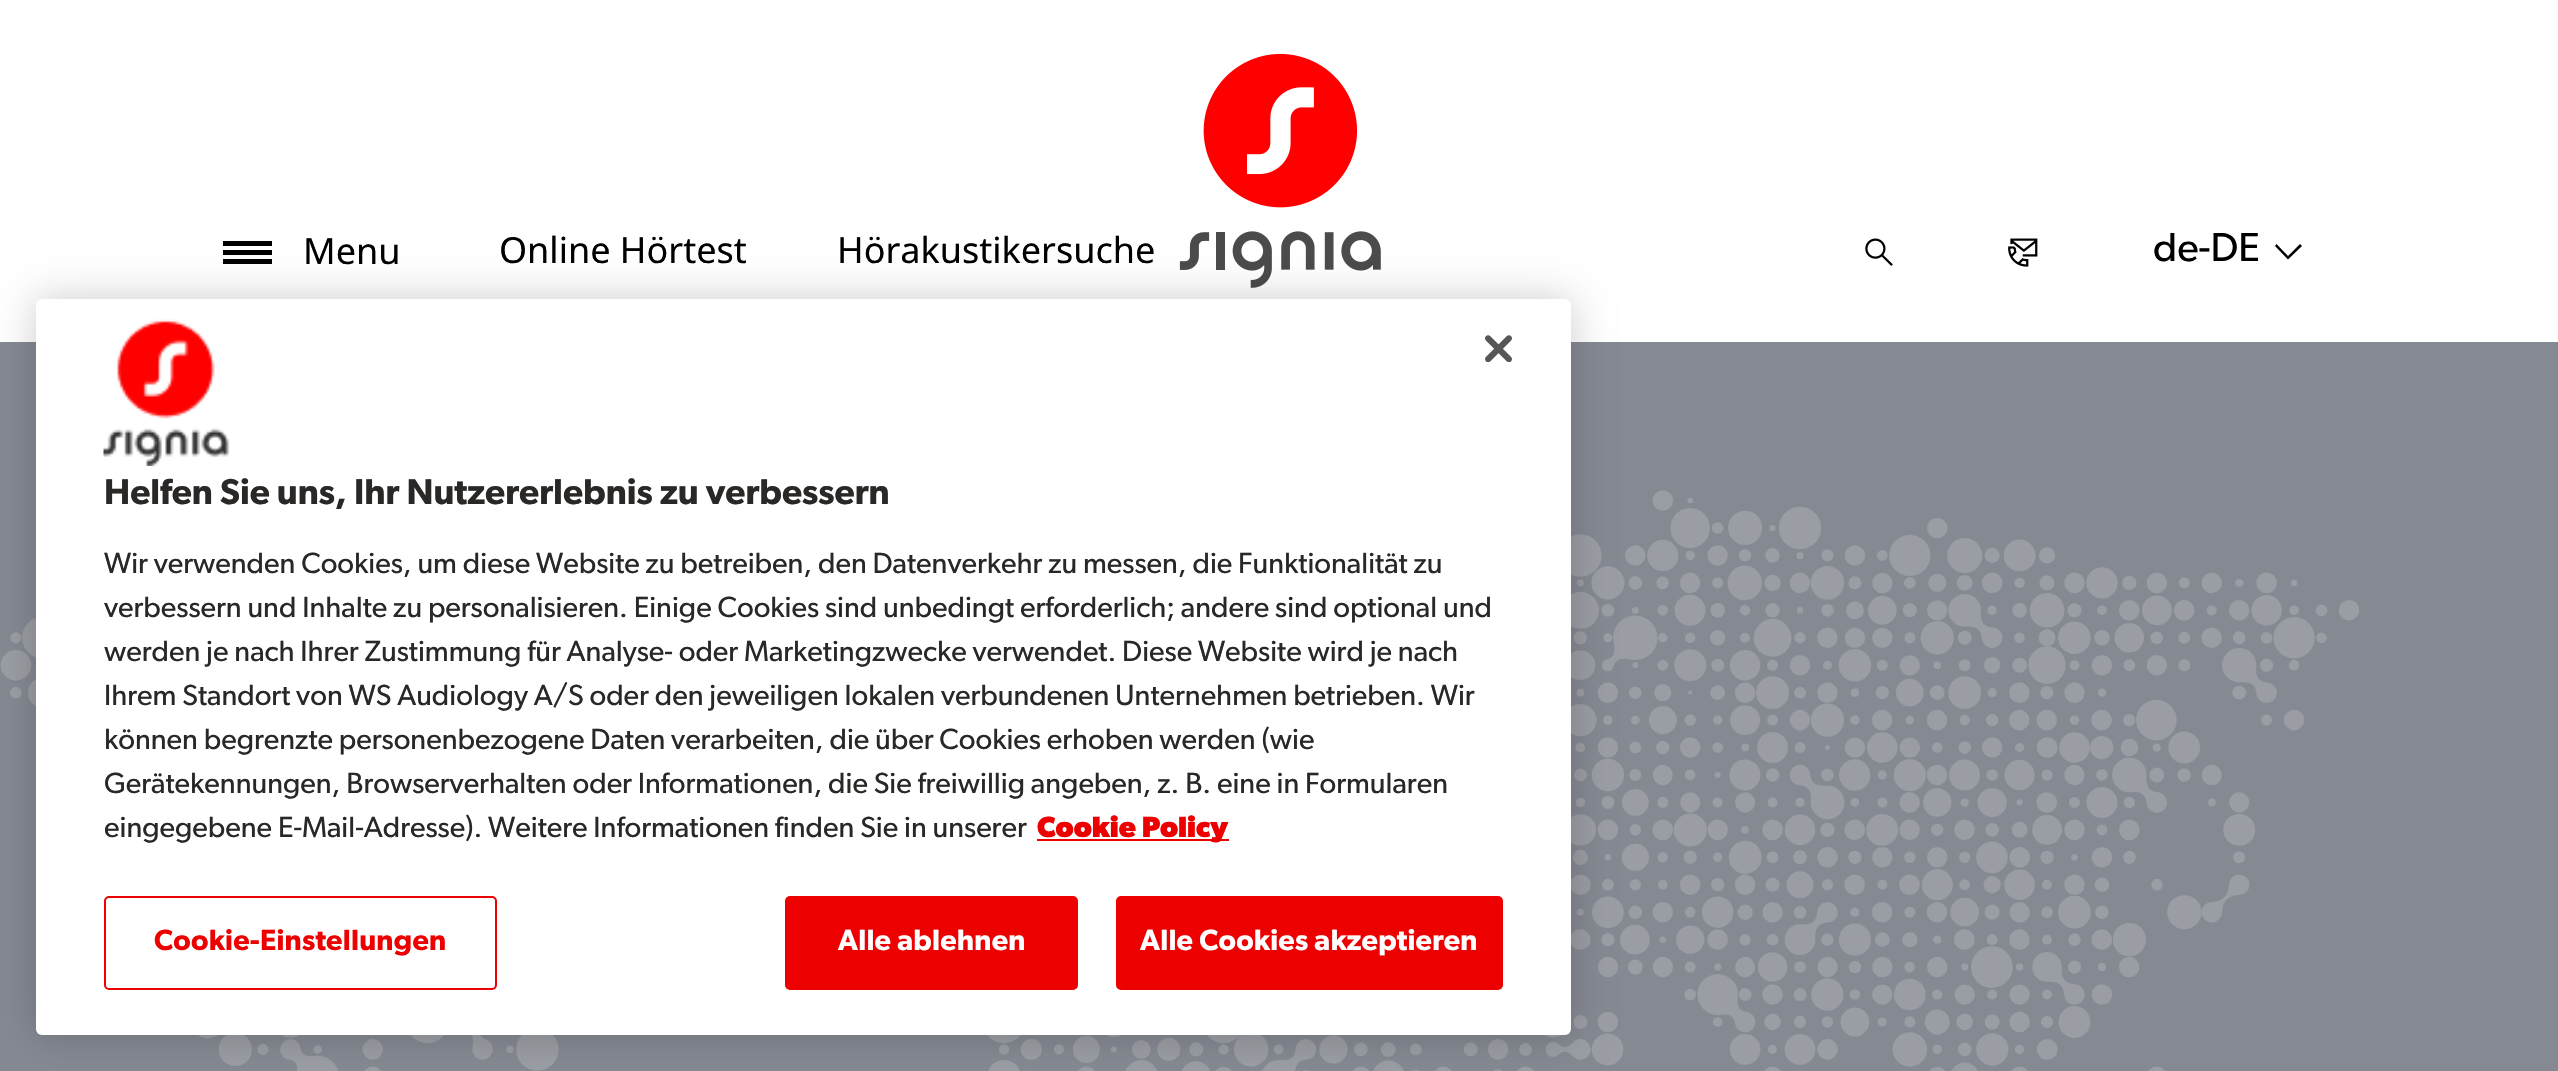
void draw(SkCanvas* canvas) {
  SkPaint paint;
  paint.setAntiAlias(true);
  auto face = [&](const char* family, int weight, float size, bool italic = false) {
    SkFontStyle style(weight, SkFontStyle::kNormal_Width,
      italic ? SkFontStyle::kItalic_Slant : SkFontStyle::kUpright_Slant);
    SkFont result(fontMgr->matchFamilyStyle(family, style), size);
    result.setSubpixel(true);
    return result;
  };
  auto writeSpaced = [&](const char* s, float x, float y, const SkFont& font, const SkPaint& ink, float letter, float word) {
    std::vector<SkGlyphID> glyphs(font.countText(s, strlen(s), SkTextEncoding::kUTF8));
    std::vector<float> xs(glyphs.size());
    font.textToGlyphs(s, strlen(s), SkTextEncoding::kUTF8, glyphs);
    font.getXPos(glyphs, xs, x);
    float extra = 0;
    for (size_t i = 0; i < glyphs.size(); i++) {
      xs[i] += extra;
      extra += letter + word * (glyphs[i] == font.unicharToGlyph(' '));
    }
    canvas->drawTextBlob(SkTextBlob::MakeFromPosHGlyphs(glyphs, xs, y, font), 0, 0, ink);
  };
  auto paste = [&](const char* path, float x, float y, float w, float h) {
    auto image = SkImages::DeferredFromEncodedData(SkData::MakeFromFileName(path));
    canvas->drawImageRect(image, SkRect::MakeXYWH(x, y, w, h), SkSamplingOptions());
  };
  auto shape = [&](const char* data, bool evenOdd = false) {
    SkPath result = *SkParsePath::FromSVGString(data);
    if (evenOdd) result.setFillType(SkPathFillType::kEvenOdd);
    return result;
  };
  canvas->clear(0xffffffff);
  {
    const struct { float x, y, w, h; SkColor color; } items[] = {
      {223, 250, 49, 5, 0xff000000},
      {223, 241, 49, 5, 0xff000000},
      {223, 259, 49, 5, 0xff000000},
    };
    for (auto [x, y, w, h, color] : items) {
      paint.setColor(color);
      canvas->drawRect(SkRect::MakeXYWH(x, y, w, h), paint);
    }
  }
  paste("img/1.png", 1179, 54, 202, 234);
  paste("img/2.png", 1865, 238, 28, 28);
  paste("img/3.png", 2008, 238, 30, 29);
  canvas->drawPath(shape("M2300 244L2302 246L2288 259.5L2275 246L2276.5 244L2288 256Z", true), paint);
  paint.setColor(0xff858992);
  canvas->drawRect(SkRect::MakeXYWH(0, 342, 2558, 729), paint);
  paste("img/4.png", 0, 490, 2359, 581);
  paint.setColor(0x33000000);
  paint.setMaskFilter(SkMaskFilter::MakeBlur(kNormal_SkBlurStyle, 20));
  canvas->drawRoundRect(SkRect::MakeXYWH(36, 299, 1535, 736), 6, 6, paint);
  paint.setMaskFilter(nullptr);
  paint.setColor(0xffffffff);
  canvas->drawRoundRect(SkRect::MakeXYWH(36, 299, 1535, 736), 6, 6, paint);
  paste("img/5.png", 1485, 335, 27, 27);
  paste("img/6.png", 103, 319, 127, 147);
  paint.setColor(0xffec0000);
  canvas->drawRect(SkRect::MakeXYWH(1037, 839, 192, 2), paint);
  paint.setStroke(true);
  paint.setStrokeWidth(2);
  canvas->drawRoundRect(SkRect::MakeXYWH(105, 897, 391, 92), 4, 4, paint);
  paint.setStroke(false);
  canvas->drawRoundRect(SkRect::MakeXYWH(786, 897, 291, 92), 4, 4, paint);
  paint.setStroke(true);
  canvas->drawRoundRect(SkRect::MakeXYWH(786, 897, 291, 92), 4, 4, paint);
  paint.setStroke(false);
  canvas->drawRoundRect(SkRect::MakeXYWH(1117, 897, 385, 92), 4, 4, paint);
  paint.setStroke(true);
  canvas->drawRoundRect(SkRect::MakeXYWH(1117, 897, 385, 92), 4, 4, paint);
  auto f0 = face("Noto Sans", 400, 36);
  paint.setStroke(false);
  paint.setColor(0xff000000);
  {
    const struct { const char* s; float x, y; } items[] = {
      {"Menu", 303, 264},
      {"Online Hörtest", 499, 263},
      {"Hörakustikersuche", 837, 263},
    };
    for (auto [s, x, y] : items) {
      canvas->drawString(s, x, y, f0, paint);
    }
  }
  auto f1 = face("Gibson", 400, 40.5f);
  canvas->drawString("de-DE", 2153, 261, f1, paint);
  auto f2 = face("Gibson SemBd", 600, 36);
  paint.setColor(0xff2a2826);
  canvas->drawString("Helfen Sie uns, Ihr Nutzererlebnis zu verbessern", 104, 504, f2, paint);
  auto f3 = face("Gibson", 400, 29.25f);
  {
    const struct { const char* s; float x, y; } items[] = {
      {"Wir verwenden Cookies, um diese Website zu betreiben, den Datenverkehr zu messen, die Funktionalität zu", 104, 573},
      {"verbessern und Inhalte zu personalisieren. Einige Cookies sind unbedingt erforderlich; andere sind optional und", 104, 617},
      {"werden je nach Ihrer Zustimmung für Analyse- oder Marketingzwecke verwendet. Diese Website wird je nach", 104, 661},
      {"Ihrem Standort von WS Audiology A/S oder den jeweiligen lokalen verbundenen Unternehmen betrieben. Wir", 104, 705},
      {"können begrenzte personenbezogene Daten verarbeiten, die über Cookies erhoben werden (wie", 104, 749},
      {"Gerätekennungen, Browserverhalten oder Informationen, die Sie freiwillig angeben, z. B. eine in Formularen", 104, 793},
      {"eingegebene E-Mail-Adresse). Weitere Informationen finden Sie in unserer", 104, 837},
    };
    for (auto [s, x, y] : items) {
      canvas->drawString(s, x, y, f3, paint);
    }
  }
  auto f4 = face("Gibson", 700, 29.25f);
  paint.setColor(0xffec0000);
  canvas->drawString("Cookie Policy", 1037, 837, f4, paint);
  auto f5 = face("Gibson SemBd", 600, 29.25f);
  writeSpaced("Cookie-Einstellungen", 154, 950, f5, paint, 0.25f, 0);
  paint.setColor(0xffffffff);
  writeSpaced("Alle ablehnen", 838, 950, f5, paint, 0.25f, 0);
  writeSpaced("Alle Cookies akzeptieren", 1140, 950, f5, paint, 0.25f, 0);
}
